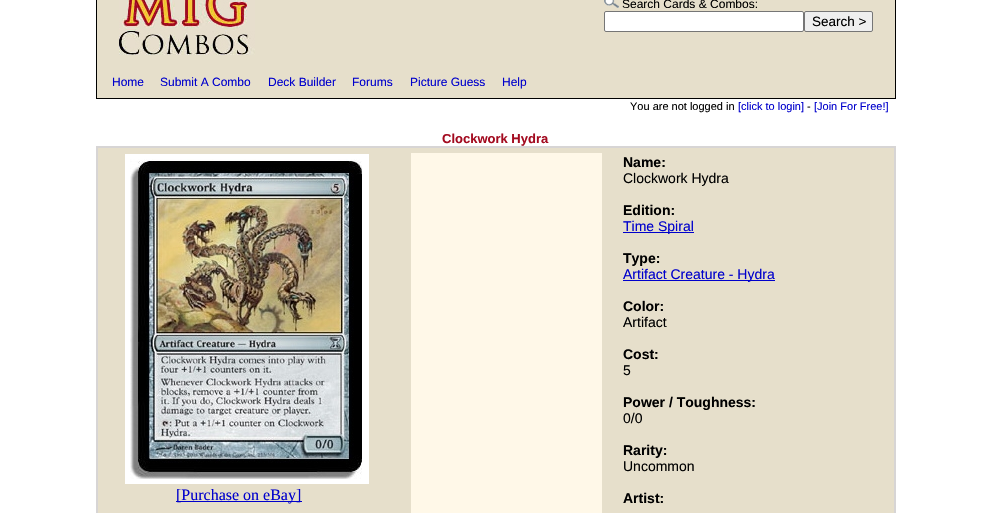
void draw(SkCanvas* canvas) {
  SkPaint paint;
  paint.setAntiAlias(true);
  auto face = [&](const char* family, int weight, float size, bool italic = false) {
    SkFontStyle style(weight, SkFontStyle::kNormal_Width,
      italic ? SkFontStyle::kItalic_Slant : SkFontStyle::kUpright_Slant);
    SkFont result(fontMgr->matchFamilyStyle(family, style), size);
    result.setSubpixel(true);
    return result;
  };
  auto paste = [&](const char* path, float x, float y, float w, float h) {
    auto image = SkImages::DeferredFromEncodedData(SkData::MakeFromFileName(path));
    canvas->drawImageRect(image, SkRect::MakeXYWH(x, y, w, h), SkSamplingOptions());
  };
  canvas->clear(0xffffffff);
  paint.setColor(0xff000000);
  canvas->drawRect(SkRect::MakeXYWH(96, 0, 800, 99), paint);
  paint.setColor(0xffe6dfcb);
  canvas->drawRect(SkRect::MakeXYWH(97, 0, 798, 98), paint);
  paste("img/1.png", 119, 0, 136, 55);
  paste("img/2.png", 604, 0, 15, 8);
  paint.setColor(0xffffffff);
  canvas->drawRoundRect(SkRect::MakeXYWH(604.5f, 11.5f, 199, 20), 1.5f, 1.5f, paint);
  paint.setStroke(true);
  paint.setStrokeWidth(1);
  paint.setColor(0xff767676);
  canvas->drawRoundRect(SkRect::MakeXYWH(604.5f, 11.5f, 199, 20), 1.5f, 1.5f, paint);
  paint.setStroke(false);
  paint.setColor(0xffefefef);
  canvas->drawRoundRect(SkRect::MakeXYWH(804.5f, 11.5f, 68, 20), 1.5f, 1.5f, paint);
  paint.setStroke(true);
  paint.setColor(0xff767676);
  canvas->drawRoundRect(SkRect::MakeXYWH(804.5f, 11.5f, 68, 20), 1.5f, 1.5f, paint);
  paint.setStroke(false);
  paint.setColor(0xffd7d5d5);
  canvas->drawRect(SkRect::MakeXYWH(96, 146, 800, 367), paint);
  paint.setColor(0xffe6dfcb);
  canvas->drawRect(SkRect::MakeXYWH(98, 148, 796, 365), paint);
  paint.setStroke(true);
  paint.setStrokeWidth(5);
  paint.setColor(0xffffffff);
  canvas->drawRect(SkRect::MakeXYWH(127.5f, 156.5f, 239, 325), paint);
  paste("img/3.png", 130, 159, 234, 320);
  paint.setStroke(false);
  {
    const struct { float x, y, w, h; SkColor color; } items[] = {
      {176, 501, 126, 1, 0xff0000cc},
      {411, 153, 191, 360, 0xfffff8e8},
      {623, 232, 71, 1, 0xff0000cc},
      {623, 280, 152, 1, 0xff0000cc},
    };
    for (auto [x, y, w, h, color] : items) {
      paint.setColor(color);
      canvas->drawRect(SkRect::MakeXYWH(x, y, w, h), paint);
    }
  }
  auto f0 = face("Liberation Sans", 400, 12);
  paint.setColor(0xff000000);
  canvas->drawString("Search Cards & Combos:", 622, 8, f0, paint);
  auto f1 = face("Liberation Sans", 400, 13.5f);
  canvas->drawString("Search >", 812, 26, f1, paint);
  paint.setColor(0xff0000cc);
  {
    const struct { const char* s; float x, y; } items[] = {
      {"Home", 112, 86},
      {"Submit A Combo", 160, 86},
      {"Deck Builder", 268, 86},
      {"Forums", 352, 86},
      {"Picture Guess", 410, 86},
      {"Help", 502, 86},
    };
    for (auto [s, x, y] : items) {
      canvas->drawString(s, x, y, f0, paint);
    }
  }
  auto f2 = face("Liberation Sans", 400, 11);
  paint.setColor(0xff000000);
  canvas->drawString("You are not logged in", 630, 110, f2, paint);
  paint.setColor(0xff0000cc);
  canvas->drawString("[click to login]", 738, 110, f2, paint);
  paint.setColor(0xff000000);
  canvas->drawString("-", 807, 110, f2, paint);
  paint.setColor(0xff0000cc);
  canvas->drawString("[Join For Free!]", 814, 110, f2, paint);
  auto f3 = face("Liberation Sans", 700, 13);
  paint.setColor(0xffa30b20);
  canvas->drawString("Clockwork Hydra", 442, 143, f3, paint);
  auto f4 = face("Liberation Serif", 400, 16);
  paint.setColor(0xff0000cc);
  canvas->drawString("[Purchase on eBay]", 176, 500, f4, paint);
  auto f5 = face("Liberation Sans", 700, 14);
  paint.setColor(0xff000000);
  canvas->drawString("Name:", 623, 167, f5, paint);
  auto f6 = face("Liberation Sans", 400, 14);
  canvas->drawString("Clockwork Hydra", 623, 183, f6, paint);
  canvas->drawString("Edition:", 623, 215, f5, paint);
  paint.setColor(0xff0000cc);
  canvas->drawString("Time Spiral", 623, 231, f6, paint);
  paint.setColor(0xff000000);
  canvas->drawString("Type:", 623, 263, f5, paint);
  paint.setColor(0xff0000cc);
  canvas->drawString("Artifact Creature - Hydra", 623, 279, f6, paint);
  paint.setColor(0xff000000);
  canvas->drawString("Color:", 623, 311, f5, paint);
  canvas->drawString("Artifact", 623, 327, f6, paint);
  canvas->drawString("Cost:", 623, 359, f5, paint);
  canvas->drawString("5", 623, 375, f6, paint);
  canvas->drawString("Power / Toughness:", 623, 407, f5, paint);
  canvas->drawString("0/0", 623, 423, f6, paint);
  canvas->drawString("Rarity:", 623, 455, f5, paint);
  canvas->drawString("Uncommon", 623, 471, f6, paint);
  canvas->drawString("Artist:", 623, 503, f5, paint);
}
